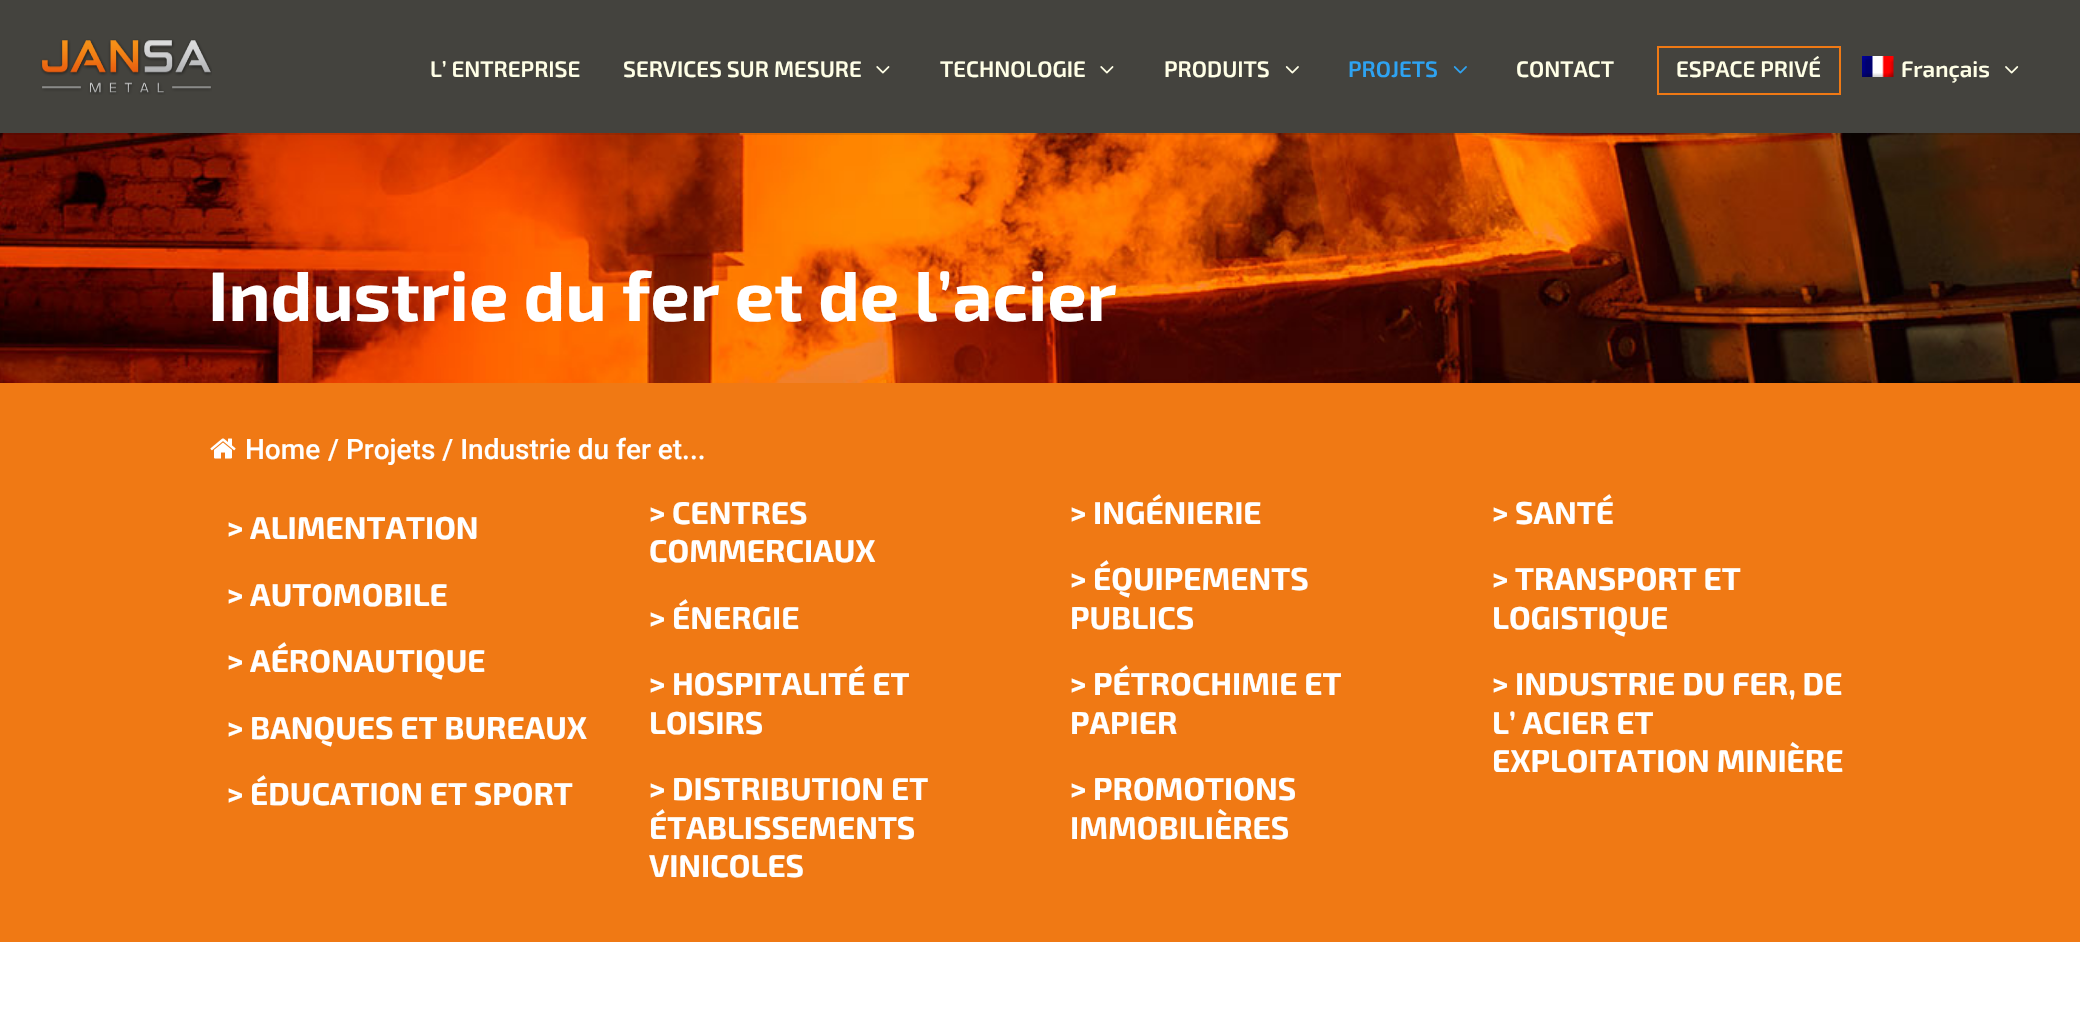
void draw(SkCanvas* canvas) {
  SkPaint paint;
  paint.setAntiAlias(true);
  auto face = [&](const char* family, int weight, float size, bool italic = false) {
    SkFontStyle style(weight, SkFontStyle::kNormal_Width,
      italic ? SkFontStyle::kItalic_Slant : SkFontStyle::kUpright_Slant);
    SkFont result(fontMgr->matchFamilyStyle(family, style), size);
    result.setSubpixel(true);
    return result;
  };
  auto paste = [&](const char* path, float x, float y, float w, float h) {
    auto image = SkImages::DeferredFromEncodedData(SkData::MakeFromFileName(path));
    canvas->drawImageRect(image, SkRect::MakeXYWH(x, y, w, h), SkSamplingOptions());
  };
  auto shape = [&](const char* data, bool evenOdd = false) {
    SkPath result = *SkParsePath::FromSVGString(data);
    if (evenOdd) result.setFillType(SkPathFillType::kEvenOdd);
    return result;
  };
  canvas->clear(0xffffffff);
  paste("img/7.png", 0, 133, 2080, 250);
  paint.setColor(0x1a000000);
  canvas->drawPath(shape("M0 133V135H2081V2V133Z"), paint);
  paint.setColor(0xff44433e);
  canvas->drawRect(SkRect::MakeXYWH(0, 0, 2080, 133), paint);
  paste("img/1.png", 40, 39, 172, 56);
  paste("img/2.png", 876, 66, 14, 8);
  paste("img/2.png", 1100, 66, 14, 8);
  paste("img/3.png", 1285, 66, 14, 8);
  paste("img/4.png", 1453, 66, 14, 8);
  paint.setStroke(true);
  paint.setStrokeWidth(2);
  paint.setColor(0xfff07914);
  canvas->drawRect(SkRect::MakeXYWH(1658, 47, 182, 47), paint);
  paste("img/5.png", 1862, 56, 32, 21);
  paste("img/6.png", 2005, 66, 14, 8);
  paint.setStroke(false);
  canvas->drawRect(SkRect::MakeXYWH(0, 383, 2080, 559), paint);
  paste("img/8.png", 210, 438, 26, 21);
  auto f0 = face("Exo 2", 600, 22.4f);
  paint.setColor(0xffffffe6);
  {
    const struct { const char* s; float x, y; } items[] = {
      {"L’ ENTREPRISE", 430, 77},
      {"SERVICES SUR MESURE", 623, 77},
      {"TECHNOLOGIE", 940, 77},
      {"PRODUITS", 1164, 77},
    };
    for (auto [s, x, y] : items) {
      canvas->drawString(s, x, y, f0, paint);
    }
  }
  paint.setColor(0xff2ea3f2);
  canvas->drawString("PROJETS", 1348, 77, f0, paint);
  paint.setColor(0xffffffe6);
  {
    const struct { const char* s; float x, y; } items[] = {
      {"CONTACT", 1516, 77},
      {"ESPACE PRIVÉ", 1676, 77},
      {"Français", 1901, 77},
    };
    for (auto [s, x, y] : items) {
      canvas->drawString(s, x, y, f0, paint);
    }
  }
  auto f1 = face("Exo 2", 700, 70);
  paint.setColor(0xffffffff);
  canvas->drawString("Industrie du fer et de l’acier", 208, 321, f1, paint);
  auto f2 = face("Roboto", 500, 28);
  canvas->drawString("Home", 245, 459, f2, paint);
  canvas->drawString("/ Projets / Industrie du fer et...", 328, 459, f2, paint);
  auto f3 = face("Exo 2", 700, 31.5f);
  {
    const struct { const char* s; float x, y; } items[] = {
      {"> ALIMENTATION", 227, 539},
      {"> CENTRES", 649, 524},
      {"COMMERCIAUX", 649, 562},
      {"> INGÉNIERIE", 1070, 524},
      {"> SANTÉ", 1492, 524},
      {"> AUTOMOBILE", 227, 606},
      {"> ÉQUIPEMENTS", 1070, 590},
      {"PUBLICS", 1070, 629},
      {"> TRANSPORT ET", 1492, 590},
      {"LOGISTIQUE", 1492, 629},
      {"> ÉNERGIE", 649, 629},
      {"> AÉRONAUTIQUE", 227, 672},
      {"> BANQUES ET BUREAUX", 227, 739},
      {"> HOSPITALITÉ ET", 649, 695},
      {"LOISIRS", 649, 734},
      {"> PÉTROCHIMIE ET", 1070, 695},
      {"PAPIER", 1070, 734},
      {"> INDUSTRIE DU FER, DE", 1492, 695},
      {"L’ ACIER ET", 1492, 734},
      {"EXPLOITATION MINIÈRE", 1492, 772},
      {"> ÉDUCATION ET SPORT", 227, 805},
      {"> DISTRIBUTION ET", 649, 800},
      {"ÉTABLISSEMENTS", 649, 839},
      {"VINICOLES", 649, 877},
      {"> PROMOTIONS", 1070, 800},
      {"IMMOBILIÈRES", 1070, 839},
    };
    for (auto [s, x, y] : items) {
      canvas->drawString(s, x, y, f3, paint);
    }
  }
}
